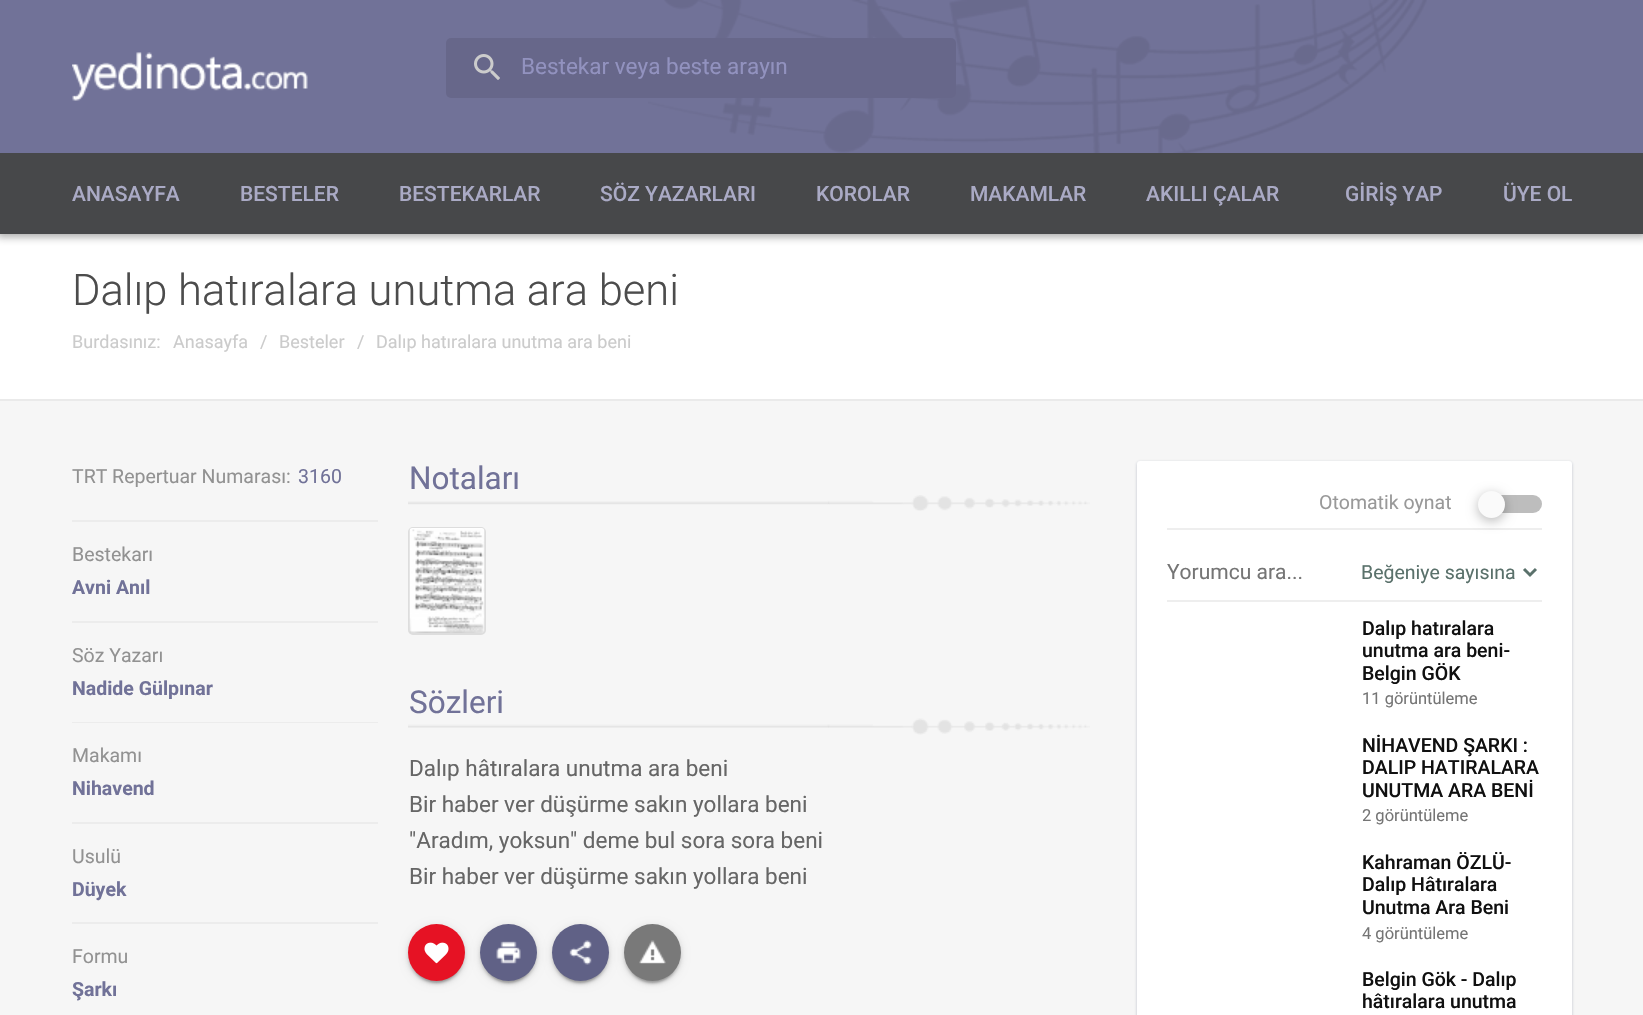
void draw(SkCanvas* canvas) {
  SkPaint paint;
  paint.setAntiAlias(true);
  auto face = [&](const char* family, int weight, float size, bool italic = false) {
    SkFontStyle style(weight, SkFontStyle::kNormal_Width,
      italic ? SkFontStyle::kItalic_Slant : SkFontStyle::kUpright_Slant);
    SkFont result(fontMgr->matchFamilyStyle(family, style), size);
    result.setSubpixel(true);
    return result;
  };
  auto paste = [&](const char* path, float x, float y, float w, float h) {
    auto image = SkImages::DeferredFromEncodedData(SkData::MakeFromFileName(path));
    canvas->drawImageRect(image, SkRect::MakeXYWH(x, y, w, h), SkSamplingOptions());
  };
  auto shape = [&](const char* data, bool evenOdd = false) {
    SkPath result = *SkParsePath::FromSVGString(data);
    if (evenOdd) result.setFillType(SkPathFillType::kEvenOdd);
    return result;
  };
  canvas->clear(0xfff6f6f6);
  paint.setColor(0xffffffff);
  canvas->drawRect(SkRect::MakeXYWH(0, 234, 1643, 165), paint);
  paint.setColor(0x611d1d1d);
  paint.setMaskFilter(SkMaskFilter::MakeBlur(kNormal_SkBlurStyle, 4));
  canvas->drawRect(SkRect::MakeXYWH(-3, -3, 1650, 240), paint);
  paint.setMaskFilter(nullptr);
  paint.setColor(0xff717298);
  canvas->drawRect(SkRect::MakeXYWH(0, 0, 1643, 153), paint);
  paste("img/1.png", 648, 0, 779, 153);
  paste("img/2.png", 72, 52, 236, 49);
  paint.setColor(0xff67678a);
  canvas->drawRoundRect(SkRect::MakeXYWH(446, 38, 510, 60), 5, 5, paint);
  paste("img/3.png", 474, 54, 26, 26);
  {
    const struct { float x, y, w, h; SkColor color; } items[] = {
      {0, 153, 1643, 81, 0xff47484a},
      {0, 399, 1643, 2, 0xffeaeaea},
      {72, 520, 306, 2, 0xffececec},
      {72, 621, 306, 2, 0xffececec},
      {72, 722, 306, 1, 0xffececec},
      {72, 822, 306, 2, 0xffececec},
      {72, 922, 306, 2, 0xffececec},
    };
    for (auto [x, y, w, h, color] : items) {
      paint.setColor(color);
      canvas->drawRect(SkRect::MakeXYWH(x, y, w, h), paint);
    }
  }
  paste("img/4.png", 408, 495, 682, 16);
  paint.setStroke(true);
  paint.setStrokeWidth(2);
  paint.setColor(0xffdddddd);
  canvas->drawRoundRect(SkRect::MakeXYWH(409, 528, 76, 106), 4, 4, paint);
  paste("img/5.png", 409, 528, 76, 105);
  paste("img/6.png", 408, 718, 682, 17);
  paint.setStroke(false);
  paint.setColor(0x1f000000);
  paint.setMaskFilter(SkMaskFilter::MakeBlur(kNormal_SkBlurStyle, 4));
  canvas->drawRoundRect(SkRect::MakeXYWH(408, 926, 57, 57), 28.5f, 28.5f, paint);
  paint.setMaskFilter(nullptr);
  paint.setColor(0x33000000);
  paint.setMaskFilter(SkMaskFilter::MakeBlur(kNormal_SkBlurStyle, 1));
  canvas->drawRoundRect(SkRect::MakeXYWH(411, 932, 51, 51), 25.5f, 25.5f, paint);
  paint.setMaskFilter(nullptr);
  paint.setColor(0x24000000);
  paint.setMaskFilter(SkMaskFilter::MakeBlur(kNormal_SkBlurStyle, 1.5f));
  canvas->drawRoundRect(SkRect::MakeXYWH(408, 927, 57, 57), 28.5f, 28.5f, paint);
  paint.setMaskFilter(nullptr);
  paint.setColor(0xffe61224);
  canvas->drawCircle(436.5f, 952.5f, 28.5f, paint);
  paste("img/7.png", 424, 942, 25, 22);
  paint.setColor(0x1f000000);
  paint.setMaskFilter(SkMaskFilter::MakeBlur(kNormal_SkBlurStyle, 4));
  canvas->drawRoundRect(SkRect::MakeXYWH(480, 926, 57, 57), 28.5f, 28.5f, paint);
  paint.setMaskFilter(nullptr);
  paint.setColor(0x33000000);
  paint.setMaskFilter(SkMaskFilter::MakeBlur(kNormal_SkBlurStyle, 1));
  canvas->drawRoundRect(SkRect::MakeXYWH(483, 932, 51, 51), 25.5f, 25.5f, paint);
  paint.setMaskFilter(nullptr);
  paint.setColor(0x24000000);
  paint.setMaskFilter(SkMaskFilter::MakeBlur(kNormal_SkBlurStyle, 1.5f));
  canvas->drawRoundRect(SkRect::MakeXYWH(480, 927, 57, 57), 28.5f, 28.5f, paint);
  paint.setMaskFilter(nullptr);
  paint.setColor(0xff606186);
  canvas->drawCircle(508.5f, 952.5f, 28.5f, paint);
  paste("img/8.png", 496, 941, 25, 23);
  paint.setColor(0x1f000000);
  paint.setMaskFilter(SkMaskFilter::MakeBlur(kNormal_SkBlurStyle, 4));
  canvas->drawRoundRect(SkRect::MakeXYWH(552, 926, 57, 57), 28.5f, 28.5f, paint);
  paint.setMaskFilter(nullptr);
  paint.setColor(0x33000000);
  paint.setMaskFilter(SkMaskFilter::MakeBlur(kNormal_SkBlurStyle, 1));
  canvas->drawRoundRect(SkRect::MakeXYWH(555, 932, 51, 51), 25.5f, 25.5f, paint);
  paint.setMaskFilter(nullptr);
  paint.setColor(0x24000000);
  paint.setMaskFilter(SkMaskFilter::MakeBlur(kNormal_SkBlurStyle, 1.5f));
  canvas->drawRoundRect(SkRect::MakeXYWH(552, 927, 57, 57), 28.5f, 28.5f, paint);
  paint.setMaskFilter(nullptr);
  paint.setColor(0xff606186);
  canvas->drawCircle(580.5f, 952.5f, 28.5f, paint);
  paste("img/9.png", 569, 940, 23, 25);
  paint.setColor(0x1f000000);
  paint.setMaskFilter(SkMaskFilter::MakeBlur(kNormal_SkBlurStyle, 4));
  canvas->drawRoundRect(SkRect::MakeXYWH(624, 926, 57, 57), 28.5f, 28.5f, paint);
  paint.setMaskFilter(nullptr);
  paint.setColor(0x33000000);
  paint.setMaskFilter(SkMaskFilter::MakeBlur(kNormal_SkBlurStyle, 1));
  canvas->drawRoundRect(SkRect::MakeXYWH(627, 932, 51, 51), 25.5f, 25.5f, paint);
  paint.setMaskFilter(nullptr);
  paint.setColor(0x24000000);
  paint.setMaskFilter(SkMaskFilter::MakeBlur(kNormal_SkBlurStyle, 1.5f));
  canvas->drawRoundRect(SkRect::MakeXYWH(624, 927, 57, 57), 28.5f, 28.5f, paint);
  paint.setMaskFilter(nullptr);
  paint.setColor(0xff797979);
  canvas->drawCircle(652.5f, 952.5f, 28.5f, paint);
  paste("img/10.png", 639, 940, 27, 24);
  paint.setColor(0x4a2b3b5d);
  paint.setMaskFilter(SkMaskFilter::MakeBlur(kNormal_SkBlurStyle, 1.5f));
  canvas->drawRoundRect(SkRect::MakeXYWH(1137, 462, 435, 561), 3, 3, paint);
  paint.setMaskFilter(nullptr);
  paint.setColor(0xffffffff);
  canvas->drawRoundRect(SkRect::MakeXYWH(1137, 461, 435, 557), 3, 3, paint);
  paint.setColor(0xffeeeeee);
  canvas->drawRect(SkRect::MakeXYWH(1167, 528, 375, 2), paint);
  paint.setColor(0xffbdbdbd);
  canvas->drawRoundRect(SkRect::MakeXYWH(1482, 495, 60, 18), 9, 9, paint);
  paint.setColor(0x47000000);
  paint.setMaskFilter(SkMaskFilter::MakeBlur(kNormal_SkBlurStyle, 6));
  canvas->drawRoundRect(SkRect::MakeXYWH(1478, 494, 27, 27), 13.5f, 13.5f, paint);
  paint.setMaskFilter(nullptr);
  paint.setColor(0xfffafafa);
  canvas->drawCircle(1491.5f, 504.5f, 13.5f, paint);
  paint.setColor(0xffeeeeee);
  canvas->drawRect(SkRect::MakeXYWH(1167, 600, 375, 2), paint);
  paint.setStroke(true);
  paint.setStrokeWidth(3);
  paint.setColor(0xff5a716b);
  canvas->drawPath(shape("M1524 569L1530 575L1536 569"), paint);
  auto f0 = face("Roboto", 400, 22.5f);
  paint.setStroke(false);
  paint.setColor(0xff9292bf);
  canvas->drawString("Bestekar veya beste arayın", 521, 74, f0, paint);
  auto f1 = face("Roboto", 500, 21);
  paint.setColor(0xffaaaac5);
  {
    const struct { const char* s; float x, y; } items[] = {
      {"ANASAYFA", 72, 201},
      {"BESTELER", 240, 201},
      {"BESTEKARLAR", 399, 201},
      {"SÖZ YAZARLARI", 600, 201},
      {"KOROLAR", 816, 201},
      {"MAKAMLAR", 970, 201},
      {"AKILLI ÇALAR", 1146, 201},
      {"GİRİŞ YAP", 1345, 201},
      {"ÜYE OL", 1503, 201},
    };
    for (auto [s, x, y] : items) {
      canvas->drawString(s, x, y, f1, paint);
    }
  }
  auto f2 = face("Roboto", 300, 43.5f);
  paint.setColor(0xff4c4c4c);
  canvas->drawString("Dalıp hatıralara unutma ara beni", 72, 305, f2, paint);
  auto f3 = face("Roboto", 400, 18);
  paint.setColor(0xffcbcbcb);
  {
    const struct { const char* s; float x, y; } items[] = {
      {"Burdasınız:", 72, 348},
      {"Anasayfa", 173, 348},
      {"/", 260, 348},
      {"Besteler", 279, 348},
      {"/", 357, 348},
      {"Dalıp hatıralara unutma ara beni", 376, 348},
    };
    for (auto [s, x, y] : items) {
      canvas->drawString(s, x, y, f3, paint);
    }
  }
  auto f4 = face("Roboto", 400, 19.5f);
  paint.setColor(0xff929292);
  canvas->drawString("TRT Repertuar Numarası:", 72, 483, f4, paint);
  paint.setColor(0xff717298);
  canvas->drawString("3160", 298, 483, f4, paint);
  paint.setColor(0xff929292);
  canvas->drawString("Bestekarı", 72, 561, f4, paint);
  auto f5 = face("Roboto", 700, 19.5f);
  paint.setColor(0xff717298);
  canvas->drawString("Avni Anıl", 72, 594, f5, paint);
  paint.setColor(0xff929292);
  canvas->drawString("Söz Yazarı", 72, 662, f4, paint);
  paint.setColor(0xff717298);
  canvas->drawString("Nadide Gülpınar", 72, 695, f5, paint);
  paint.setColor(0xff929292);
  canvas->drawString("Makamı", 72, 762, f4, paint);
  paint.setColor(0xff717298);
  canvas->drawString("Nihavend", 72, 795, f5, paint);
  paint.setColor(0xff929292);
  canvas->drawString("Usulü", 72, 863, f4, paint);
  paint.setColor(0xff717298);
  canvas->drawString("Düyek", 72, 896, f5, paint);
  paint.setColor(0xff929292);
  canvas->drawString("Formu", 72, 963, f4, paint);
  paint.setColor(0xff717298);
  canvas->drawString("Şarkı", 72, 996, f5, paint);
  auto f6 = face("Roboto", 400, 31.5f);
  canvas->drawString("Notaları", 409, 489, f6, paint);
  canvas->drawString("Sözleri", 409, 713, f6, paint);
  paint.setColor(0xff666666);
  {
    const struct { const char* s; float x, y; } items[] = {
      {"Dalıp hâtıralara unutma ara beni", 409, 776},
      {"Bir haber ver düşürme sakın yollara beni", 409, 812},
      {"\"Aradım, yoksun\" deme bul sora sora beni", 409, 848},
      {"Bir haber ver düşürme sakın yollara beni", 409, 884},
    };
    for (auto [s, x, y] : items) {
      canvas->drawString(s, x, y, f0, paint);
    }
  }
  paint.setColor(0xff999999);
  canvas->drawString("Otomatik oynat", 1319, 509, f4, paint);
  auto f7 = face("Roboto", 400, 21);
  paint.setColor(0xff757575);
  canvas->drawString("Yorumcu ara...", 1167, 579, f7, paint);
  paint.setColor(0xff5a716b);
  canvas->drawString("Beğeniye sayısına", 1361, 579, f4, paint);
  auto f8 = face("Roboto", 500, 19.5f);
  paint.setColor(0xff101010);
  {
    const struct { const char* s; float x, y; } items[] = {
      {"Dalıp hatıralara", 1362, 635},
      {"unutma ara beni-", 1362, 657},
      {"Belgin GÖK", 1362, 680},
    };
    for (auto [s, x, y] : items) {
      canvas->drawString(s, x, y, f8, paint);
    }
  }
  auto f9 = face("Roboto", 400, 16.5f);
  paint.setColor(0xff757575);
  canvas->drawString("11 görüntüleme", 1362, 704, f9, paint);
  paint.setColor(0xff101010);
  {
    const struct { const char* s; float x, y; } items[] = {
      {"NİHAVEND ŞARKI :", 1362, 752},
      {"DALIP HATIRALARA", 1362, 774},
      {"UNUTMA ARA BENİ", 1362, 797},
    };
    for (auto [s, x, y] : items) {
      canvas->drawString(s, x, y, f8, paint);
    }
  }
  paint.setColor(0xff757575);
  canvas->drawString("2 görüntüleme", 1362, 821, f9, paint);
  paint.setColor(0xff101010);
  {
    const struct { const char* s; float x, y; } items[] = {
      {"Kahraman ÖZLÜ-", 1362, 869},
      {"Dalıp Hâtıralara", 1362, 891},
      {"Unutma Ara Beni", 1362, 914},
    };
    for (auto [s, x, y] : items) {
      canvas->drawString(s, x, y, f8, paint);
    }
  }
  paint.setColor(0xff757575);
  canvas->drawString("4 görüntüleme", 1362, 939, f9, paint);
  paint.setColor(0xff101010);
  canvas->drawString("Belgin Gök - Dalıp", 1362, 986, f8, paint);
  canvas->drawString("hâtıralara unutma", 1362, 1008, f8, paint);
}
